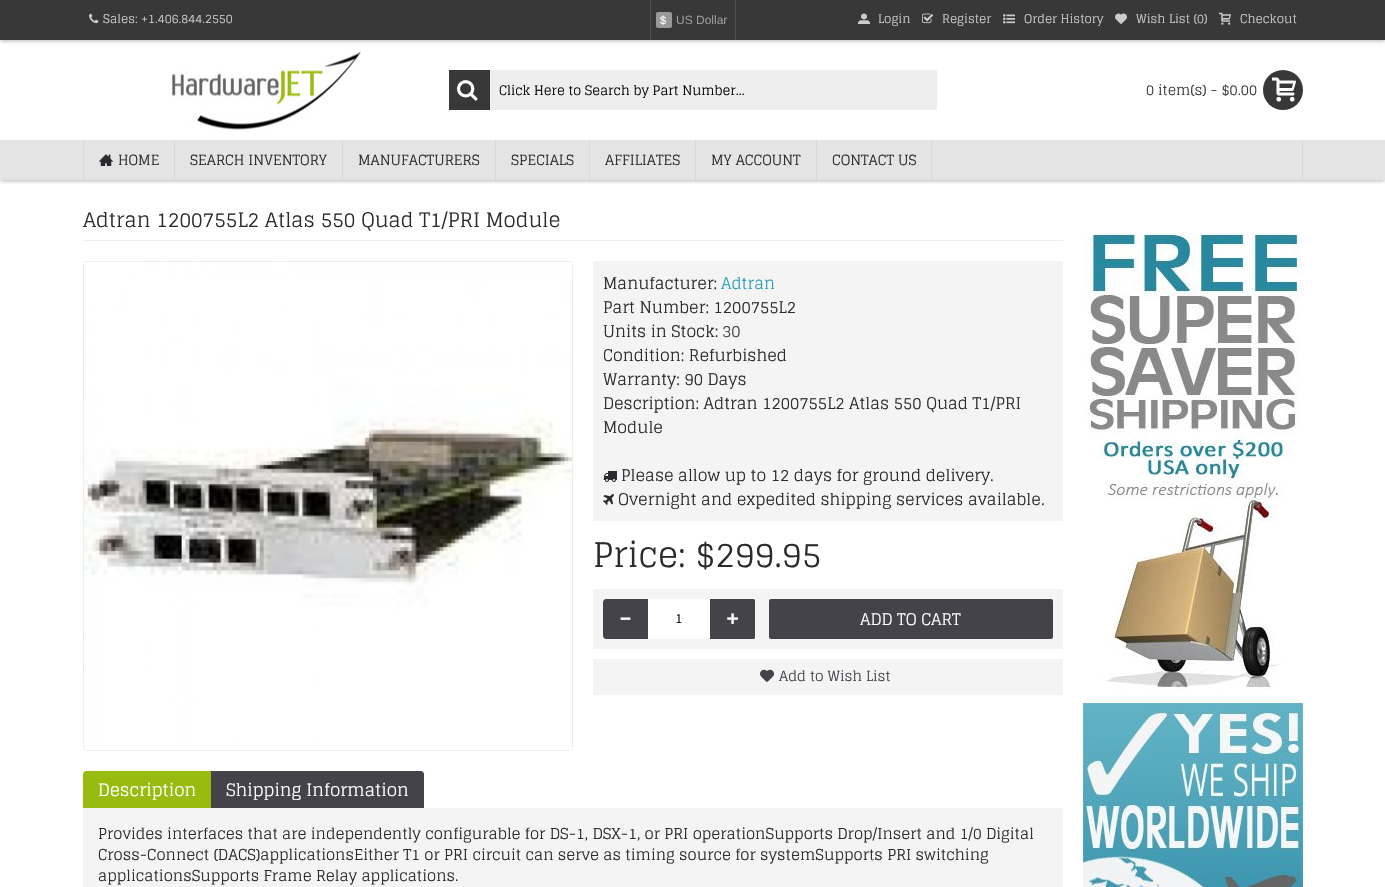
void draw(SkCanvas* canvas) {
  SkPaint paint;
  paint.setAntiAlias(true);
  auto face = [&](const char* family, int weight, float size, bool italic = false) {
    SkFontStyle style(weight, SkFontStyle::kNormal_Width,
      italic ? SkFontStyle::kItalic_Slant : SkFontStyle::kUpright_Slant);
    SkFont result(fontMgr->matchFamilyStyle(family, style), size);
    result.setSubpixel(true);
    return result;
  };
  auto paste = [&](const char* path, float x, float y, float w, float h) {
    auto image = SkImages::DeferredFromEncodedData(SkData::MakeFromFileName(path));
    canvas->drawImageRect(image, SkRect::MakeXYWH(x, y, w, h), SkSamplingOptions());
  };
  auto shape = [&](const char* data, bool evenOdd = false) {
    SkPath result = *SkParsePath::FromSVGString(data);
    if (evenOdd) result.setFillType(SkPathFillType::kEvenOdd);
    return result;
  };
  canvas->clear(0xffffffff);
  canvas->save();
  canvas->clipRect(SkRect::MakeXYWH(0, 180, 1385, 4));
  paint.setColor(0x66000000);
  paint.setMaskFilter(SkMaskFilter::MakeBlur(kNormal_SkBlurStyle, 2.5f));
  canvas->drawRect(SkRect::MakeXYWH(0, 0, 1385, 180), paint);
  paint.setMaskFilter(nullptr);
  canvas->restore();
  paint.setMaskFilter(SkMaskFilter::MakeBlur(kNormal_SkBlurStyle, 2.5f));
  canvas->drawRect(SkRect::MakeXYWH(0, 0, 1385, 40), paint);
  paint.setMaskFilter(nullptr);
  paint.setColor(0xff383838);
  canvas->drawRect(SkRect::MakeXYWH(0, 0, 1385, 40), paint);
  paste("img/1.png", 89, 13, 10, 11);
  paint.setColor(0xff505050);
  canvas->drawRect(SkRect::MakeXYWH(735, 0, 1, 40), paint);
  canvas->drawRect(SkRect::MakeXYWH(650, 0, 1, 40), paint);
  paint.setColor(0xff999999);
  canvas->drawRoundRect(SkRect::MakeXYWH(656, 12, 16, 16), 2, 2, paint);
  paste("img/2.png", 858, 13, 12, 11);
  paste("img/3.png", 922, 13, 12, 11);
  paste("img/4.png", 1003, 14, 12, 10);
  paste("img/5.png", 1115, 13, 12, 11);
  paste("img/6.png", 1219, 12, 12, 13);
  paste("img/7.png", 172, 51, 189, 79);
  paint.setColor(0xff383838);
  canvas->drawRect(SkRect::MakeXYWH(449, 70, 41, 40), paint);
  paste("img/8.png", 457, 80, 21, 21);
  paint.setColor(0xffeeeeee);
  canvas->drawRect(SkRect::MakeXYWH(490, 70, 447, 40), paint);
  paint.setColor(0xff383838);
  canvas->drawCircle(1283, 90, 20, paint);
  paste("img/9.png", 1272, 77, 24, 25);
  {
    const struct { float x, y, w, h; SkColor color; } items[] = {
      {0, 140, 1385, 40, 0xffe4e4e4},
      {1302, 140, 1, 40, 0xffd9d9d9},
      {83, 140, 1, 40, 0xffd9d9d9},
      {174, 140, 1, 40, 0xffd9d9d9},
    };
    for (auto [x, y, w, h, color] : items) {
      paint.setColor(color);
      canvas->drawRect(SkRect::MakeXYWH(x, y, w, h), paint);
    }
  }
  paste("img/10.png", 99, 154, 14, 12);
  {
    const struct { float x, y, w, h; SkColor color; } items[] = {
      {342, 140, 1, 40, 0xffd9d9d9},
      {495, 140, 1, 40, 0xffd9d9d9},
      {589, 140, 1, 40, 0xffd9d9d9},
      {695, 140, 1, 40, 0xffd9d9d9},
      {816, 140, 1, 40, 0xffd9d9d9},
      {931, 140, 1, 40, 0xffd9d9d9},
      {83, 240, 980, 1, 0xffeeeeee},
    };
    for (auto [x, y, w, h, color] : items) {
      paint.setColor(color);
      canvas->drawRect(SkRect::MakeXYWH(x, y, w, h), paint);
    }
  }
  paint.setStroke(true);
  paint.setStrokeWidth(1);
  canvas->drawRoundRect(SkRect::MakeXYWH(83.5f, 261.5f, 489, 489), 2.5f, 2.5f, paint);
  paste("img/11.png", 84, 262, 488, 488);
  paint.setStroke(false);
  paint.setColor(0xfff4f4f4);
  canvas->drawRect(SkRect::MakeXYWH(593, 261, 470, 260), paint);
  paste("img/12.png", 603, 471, 14, 11);
  paste("img/13.png", 603, 494, 11, 11);
  canvas->drawRect(SkRect::MakeXYWH(593, 589, 470, 60), paint);
  paint.setColor(0xff444349);
  canvas->drawPath(shape("M606 599H648V639H606C604.5 639 603 637.5 603 636V602C603 600.5 604.5 599 606 599Z"), paint);
  paint.setColor(0xffffffff);
  canvas->drawRect(SkRect::MakeXYWH(648, 599, 62, 40), paint);
  canvas->save();
  canvas->clipPath(shape("M606 599H753C754.5 599 756 600.5 756 602V636C756 637.5 754.5 639 753 639H606C604.5 639 603 637.5 603 636V602C603 600.5 604.5 599 606 599Z"), true);
  paint.setColor(0xff444349);
  canvas->drawRect(SkRect::MakeXYWH(710, 599, 45, 40), paint);
  canvas->restore();
  canvas->drawRoundRect(SkRect::MakeXYWH(769, 599, 284, 40), 2, 2, paint);
  paint.setColor(0xfff4f4f4);
  canvas->drawRect(SkRect::MakeXYWH(593, 659, 470, 36), paint);
  paste("img/14.png", 760, 669, 14, 13);
  paint.setColor(0xff97bb0f);
  canvas->drawPath(shape("M86 771H211V808H83V774C83 772.5 84.5 771 86 771Z"), paint);
  paint.setColor(0xff444349);
  canvas->drawPath(shape("M211 771H421C422.5 771 424 772.5 424 774V808H211Z"), paint);
  paint.setColor(0xfff4f4f4);
  canvas->drawPath(shape("M83 808H1060C1061.5 808 1063 809.5 1063 811V887C1063 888.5 1061.5 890 1060 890H86C84.5 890 83 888.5 83 887Z"), paint);
  paste("img/15.png", 1083, 233, 220, 457);
  paste("img/16.png", 1083, 703, 220, 184);
  auto f0 = face("Glegoo", 400, 12);
  paint.setColor(0xffcccccc);
  canvas->drawString("Sales: +1.406.844.2550", 103, 23, f0, paint);
  auto f1 = face("Liberation Sans", 400, 11);
  paint.setColor(0xffffffff);
  canvas->drawString("$", 660, 24, f1, paint);
  auto f2 = face("Liberation Sans", 400, 12);
  paint.setColor(0xff999999);
  canvas->drawString("US Dollar", 676, 24, f2, paint);
  paint.setColor(0xffcccccc);
  {
    const struct { const char* s; float x, y; } items[] = {
      {"Login", 878, 23},
      {"Register", 942, 23},
      {"Order History", 1024, 23},
      {"Wish List (0)", 1136, 23},
      {"Checkout", 1240, 23},
    };
    for (auto [s, x, y] : items) {
      canvas->drawString(s, x, y, f0, paint);
    }
  }
  auto f3 = face("Glegoo", 400, 13);
  paint.setColor(0xff000000);
  canvas->drawString("Click Here to Search by Part Number...", 499, 95, f3, paint);
  auto f4 = face("Glegoo", 400, 14);
  paint.setColor(0xff383838);
  canvas->drawString("0 item(s) - $0.00", 1146, 95, f4, paint);
  paint.setColor(0xff2a2b2e);
  {
    const struct { const char* s; float x, y; } items[] = {
      {"HOME", 118, 165},
      {"SEARCH INVENTORY", 190, 165},
      {"MANUFACTURERS", 358, 165},
      {"SPECIALS", 511, 165},
      {"AFFILIATES", 605, 165},
      {"MY ACCOUNT", 711, 165},
      {"CONTACT US", 832, 165},
    };
    for (auto [s, x, y] : items) {
      canvas->drawString(s, x, y, f4, paint);
    }
  }
  auto f5 = face("Glegoo", 400, 20);
  canvas->drawString("Adtran 1200755L2 Atlas 550 Quad T1/PRI Module", 83, 227, f5, paint);
  auto f6 = face("Glegoo", 400, 16);
  canvas->drawString("Manufacturer:", 603, 289, f6, paint);
  paint.setColor(0xff339db9);
  canvas->drawString("Adtran", 721, 289, f6, paint);
  paint.setColor(0xff2a2b2e);
  canvas->drawString("Part Number: 1200755L2", 603, 313, f6, paint);
  canvas->drawString("Units in Stock:", 603, 337, f6, paint);
  paint.setColor(0xff444349);
  canvas->drawString("30", 722, 337, f6, paint);
  paint.setColor(0xff2a2b2e);
  {
    const struct { const char* s; float x, y; } items[] = {
      {"Condition: Refurbished", 603, 361},
      {"Warranty: 90 Days", 603, 385},
      {"Description: Adtran 1200755L2 Atlas 550 Quad T1/PRI", 603, 409},
      {"Module", 603, 433},
      {"Please allow up to 12 days for ground delivery.", 621, 481},
      {"Overnight and expedited shipping services available.", 618, 505},
    };
    for (auto [s, x, y] : items) {
      canvas->drawString(s, x, y, f6, paint);
    }
  }
  auto f7 = face("Glegoo", 400, 34);
  canvas->drawString("Price: $299.95", 593, 567, f7, paint);
  auto f8 = face("Glegoo", 700, 25);
  paint.setColor(0xffffffff);
  canvas->drawString("-", 619, 627, f8, paint);
  paint.setColor(0xff000000);
  canvas->drawString("1", 675, 623, f3, paint);
  paint.setColor(0xffffffff);
  canvas->drawString("+", 725, 627, f8, paint);
  canvas->drawString("ADD TO CART", 860, 625, f6, paint);
  paint.setColor(0xff444349);
  canvas->drawString("Add to Wish List", 779, 681, f4, paint);
  auto f9 = face("Glegoo", 400, 17);
  paint.setColor(0xffffffff);
  canvas->drawString("Description", 98, 796, f9, paint);
  canvas->drawString("Shipping Information", 226, 796, f9, paint);
  auto f10 = face("Glegoo", 400, 15);
  paint.setColor(0xff2a2b2e);
  {
    const struct { const char* s; float x, y; } items[] = {
      {"Provides interfaces that are independently configurable for DS-1, DSX-1, or PRI operationSupports Drop/Insert and 1/0 Digital", 98, 839},
      {"Cross-Connect (DACS)applicationsEither T1 or PRI circuit can serve as timing source for systemSupports PRI switching", 98, 860},
      {"applicationsSupports Frame Relay applications.", 98, 881},
    };
    for (auto [s, x, y] : items) {
      canvas->drawString(s, x, y, f10, paint);
    }
  }
}
